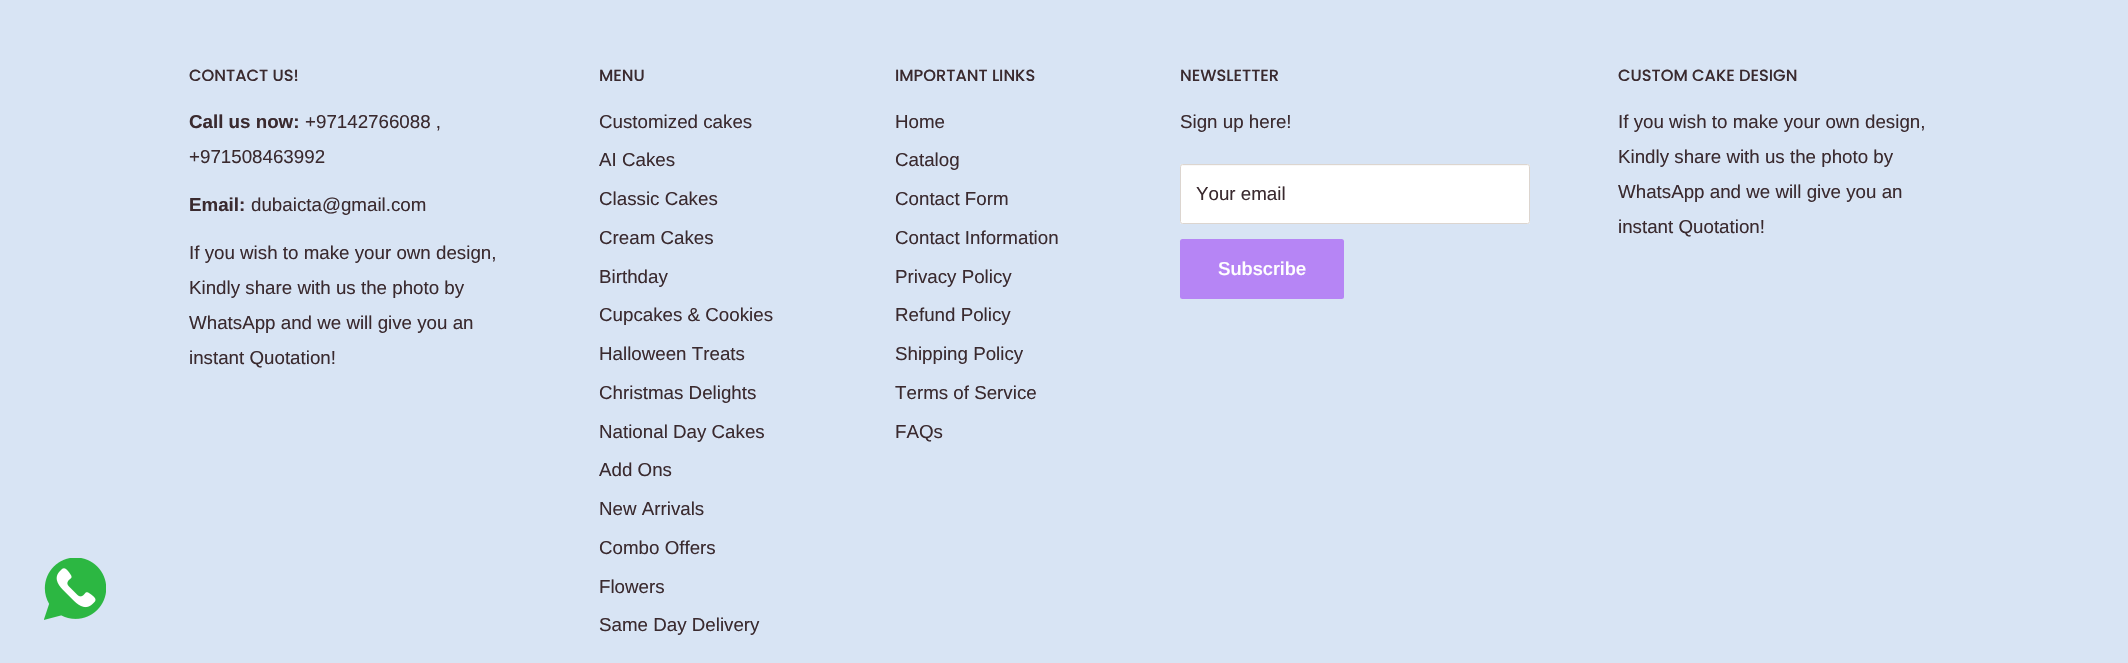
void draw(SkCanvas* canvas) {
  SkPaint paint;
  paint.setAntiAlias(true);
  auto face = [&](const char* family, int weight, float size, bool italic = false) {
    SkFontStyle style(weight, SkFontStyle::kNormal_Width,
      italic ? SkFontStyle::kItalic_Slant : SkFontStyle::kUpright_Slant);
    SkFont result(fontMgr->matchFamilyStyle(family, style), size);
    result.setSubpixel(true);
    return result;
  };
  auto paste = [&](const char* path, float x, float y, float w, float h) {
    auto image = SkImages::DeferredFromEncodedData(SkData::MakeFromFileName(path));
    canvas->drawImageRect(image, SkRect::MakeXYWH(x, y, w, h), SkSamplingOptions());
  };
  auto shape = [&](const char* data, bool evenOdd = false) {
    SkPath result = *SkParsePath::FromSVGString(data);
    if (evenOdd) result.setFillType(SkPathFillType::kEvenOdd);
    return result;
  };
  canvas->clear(0xffd8e4f4);
  paste("img/1.png", 44, 558, 62, 62);
  paint.setColor(0xffffffff);
  canvas->drawRoundRect(SkRect::MakeXYWH(1180, 164, 350, 60), 2.5f, 2.5f, paint);
  paint.setColor(0xfff9f8f7);
  canvas->drawPath(shape("M1182 166H1528L1529 168C1529 167 1529 165 1528 165H1181V168Z"), paint);
  paint.setStroke(true);
  paint.setStrokeWidth(1);
  paint.setColor(0xffdcd5cf);
  canvas->drawRoundRect(SkRect::MakeXYWH(1180.5f, 164.5f, 349, 59), 2, 2, paint);
  paint.setStroke(false);
  paint.setColor(0xffb685f5);
  canvas->drawRoundRect(SkRect::MakeXYWH(1180, 239, 164, 60), 2.5f, 2.5f, paint);
  auto f0 = face("Poppins", 500, 16.25f);
  paint.setColor(0xff3a2a2f);
  canvas->drawString("CONTACT US!", 189, 81, f0, paint);
  auto f1 = face("Arimo", 700, 18.75f);
  canvas->drawString("Call us now:", 189, 128, f1, paint);
  auto f2 = face("Arimo", 400, 18.75f);
  canvas->drawString("+97142766088 ,", 305, 128, f2, paint);
  canvas->drawString("+971508463992", 189, 163, f2, paint);
  canvas->drawString("Email:", 189, 211, f1, paint);
  {
    const struct { const char* s; float x, y; } items[] = {
      {"dubaicta@gmail.com", 251, 211},
      {"If you wish to make your own design,", 189, 259},
      {"Kindly share with us the photo by", 189, 294},
      {"WhatsApp and we will give you an", 189, 329},
      {"instant Quotation!", 189, 364},
    };
    for (auto [s, x, y] : items) {
      canvas->drawString(s, x, y, f2, paint);
    }
  }
  canvas->drawString("MENU", 599, 81, f0, paint);
  {
    const struct { const char* s; float x, y; } items[] = {
      {"Customized cakes", 599, 128},
      {"AI Cakes", 599, 166},
      {"Classic Cakes", 599, 205},
      {"Cream Cakes", 599, 244},
      {"Birthday", 599, 283},
      {"Cupcakes & Cookies", 599, 321},
      {"Halloween Treats", 599, 360},
      {"Christmas Delights", 599, 399},
      {"National Day Cakes", 599, 438},
      {"Add Ons", 599, 476},
      {"New Arrivals", 599, 515},
      {"Combo Offers", 599, 554},
      {"Flowers", 599, 593},
      {"Same Day Delivery", 599, 631},
    };
    for (auto [s, x, y] : items) {
      canvas->drawString(s, x, y, f2, paint);
    }
  }
  canvas->drawString("IMPORTANT LINKS", 895, 81, f0, paint);
  {
    const struct { const char* s; float x, y; } items[] = {
      {"Home", 895, 128},
      {"Catalog", 895, 166},
      {"Contact Form", 895, 205},
      {"Contact Information", 895, 244},
      {"Privacy Policy", 895, 283},
      {"Refund Policy", 895, 321},
      {"Shipping Policy", 895, 360},
      {"Terms of Service", 895, 399},
      {"FAQs", 895, 438},
    };
    for (auto [s, x, y] : items) {
      canvas->drawString(s, x, y, f2, paint);
    }
  }
  canvas->drawString("NEWSLETTER", 1180, 81, f0, paint);
  canvas->drawString("Sign up here!", 1180, 128, f2, paint);
  canvas->drawString("Your email", 1196, 200, f2, paint);
  auto f3 = face("Arimo", 600, 18.75f);
  paint.setColor(0xffffffff);
  canvas->drawString("Subscribe", 1218, 275, f3, paint);
  paint.setColor(0xff3a2a2f);
  canvas->drawString("CUSTOM CAKE DESIGN", 1618, 81, f0, paint);
  {
    const struct { const char* s; float x, y; } items[] = {
      {"If you wish to make your own design,", 1618, 128},
      {"Kindly share with us the photo by", 1618, 163},
      {"WhatsApp and we will give you an", 1618, 198},
      {"instant Quotation!", 1618, 233},
    };
    for (auto [s, x, y] : items) {
      canvas->drawString(s, x, y, f2, paint);
    }
  }
}
